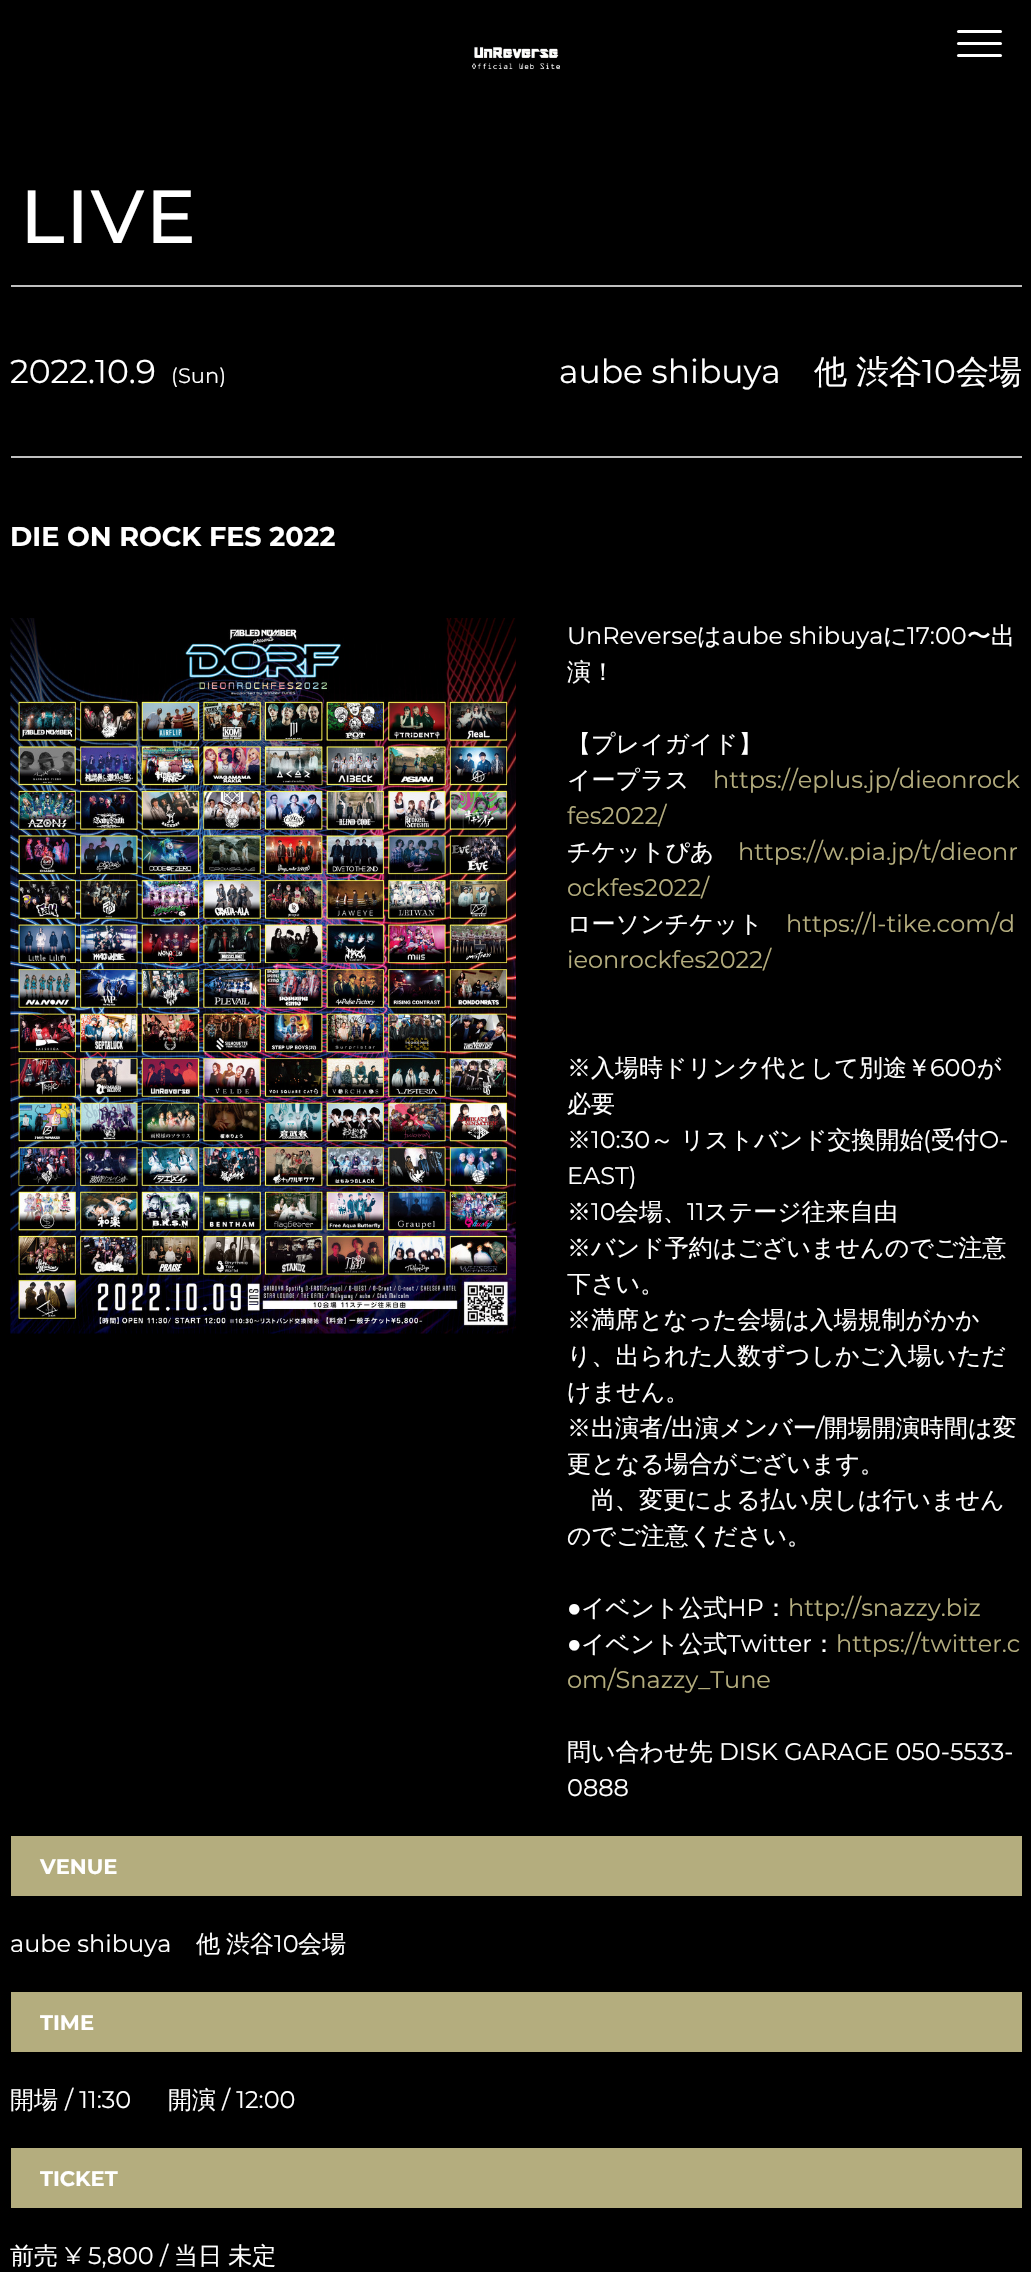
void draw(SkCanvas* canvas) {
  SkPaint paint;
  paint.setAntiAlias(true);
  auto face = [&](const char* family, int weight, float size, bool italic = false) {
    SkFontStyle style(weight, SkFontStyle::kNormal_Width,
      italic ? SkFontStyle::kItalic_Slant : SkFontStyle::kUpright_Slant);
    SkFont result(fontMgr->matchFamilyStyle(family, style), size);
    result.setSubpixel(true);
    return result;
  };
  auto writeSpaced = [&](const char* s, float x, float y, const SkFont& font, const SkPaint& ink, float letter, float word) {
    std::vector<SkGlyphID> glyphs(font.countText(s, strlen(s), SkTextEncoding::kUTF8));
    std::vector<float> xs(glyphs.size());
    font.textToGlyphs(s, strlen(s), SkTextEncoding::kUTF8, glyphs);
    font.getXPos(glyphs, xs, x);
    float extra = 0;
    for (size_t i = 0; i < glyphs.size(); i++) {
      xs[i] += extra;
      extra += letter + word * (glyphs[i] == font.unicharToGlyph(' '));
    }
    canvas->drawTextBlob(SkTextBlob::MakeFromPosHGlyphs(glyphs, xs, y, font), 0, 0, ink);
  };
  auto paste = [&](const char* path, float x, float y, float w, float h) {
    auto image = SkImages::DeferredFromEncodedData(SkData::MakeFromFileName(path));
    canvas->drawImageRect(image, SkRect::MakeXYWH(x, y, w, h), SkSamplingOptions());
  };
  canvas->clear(0xff000000);
  paste("img/1.png", 472, 46, 88, 24);
  paint.setColor(0xffffffff);
  canvas->drawRoundRect(SkRect::MakeXYWH(957, 30, 45, 3), 1.5f, 1.5f, paint);
  canvas->drawRoundRect(SkRect::MakeXYWH(957, 42, 45, 3), 1.5f, 1.5f, paint);
  canvas->drawRoundRect(SkRect::MakeXYWH(957, 54, 45, 3), 1.5f, 1.5f, paint);
  paint.setColor(0xffbfbfbf);
  canvas->drawRect(SkRect::MakeXYWH(11, 285, 1011, 2), paint);
  canvas->drawRect(SkRect::MakeXYWH(11, 456, 1011, 2), paint);
  paste("img/2.png", 10, 618, 506, 716);
  {
    const struct { float x, y, w, h; SkColor color; } items[] = {
      {11, 1836, 1011, 60, 0xffb4ad7e},
      {11, 1992, 1011, 60, 0xffb4ad7e},
      {11, 2148, 1011, 60, 0xffb4ad7e},
    };
    for (auto [x, y, w, h, color] : items) {
      paint.setColor(color);
      canvas->drawRect(SkRect::MakeXYWH(x, y, w, h), paint);
    }
  }
  auto f0 = face("Montserrat", 500, 75);
  paint.setColor(0xffffffff);
  writeSpaced("LIVE", 20, 243, f0, paint, 1.5f, 0);
  auto f1 = face("Montserrat", 400, 33);
  canvas->drawString("2022.10.9", 10, 383, f1, paint);
  auto f2 = face("Montserrat", 400, 21);
  canvas->drawString("(Sun)", 171, 383, f2, paint);
  canvas->drawString("aube shibuya", 559, 383, f1, paint);
  auto f3 = face("WenQuanYi Zen Hei", 500, 33);
  canvas->drawString("他", 814, 383, f3, paint);
  canvas->drawString("渋谷", 856, 383, f3, paint);
  canvas->drawString("10", 922, 383, f1, paint);
  canvas->drawString("会場", 956, 383, f3, paint);
  auto f4 = face("Montserrat", 700, 27);
  canvas->drawString("DIE ON ROCK FES 2022", 10, 546, f4, paint);
  auto f5 = face("Montserrat", 400, 24);
  canvas->drawString("UnReverse", 567, 644, f5, paint);
  auto f6 = face("WenQuanYi Zen Hei", 500, 24);
  canvas->drawString("は", 697, 644, f6, paint);
  canvas->drawString("aube shibuya", 722, 644, f5, paint);
  canvas->drawString("に", 883, 644, f6, paint);
  canvas->drawString("17:00", 907, 644, f5, paint);
  {
    const struct { const char* s; float x, y; } items[] = {
      {"〜出", 967, 644},
      {"演！", 567, 680},
      {"【プレイガイド】", 567, 752},
      {"イープラス", 567, 788},
    };
    for (auto [s, x, y] : items) {
      canvas->drawString(s, x, y, f6, paint);
    }
  }
  paint.setColor(0xffb4ad7e);
  canvas->drawString("https://eplus.jp/dieonrock", 713, 788, f5, paint);
  canvas->drawString("fes2022/", 567, 824, f5, paint);
  paint.setColor(0xffffffff);
  canvas->drawString("チケットぴあ", 567, 860, f6, paint);
  paint.setColor(0xffb4ad7e);
  canvas->drawString("https://w.pia.jp/t/dieonr", 738, 860, f5, paint);
  canvas->drawString("ockfes2022/", 567, 896, f5, paint);
  paint.setColor(0xffffffff);
  canvas->drawString("ローソンチケット", 567, 932, f6, paint);
  paint.setColor(0xffb4ad7e);
  canvas->drawString("https://l-tike.com/d", 786, 932, f5, paint);
  canvas->drawString("ieonrockfes2022/", 567, 968, f5, paint);
  paint.setColor(0xffffffff);
  canvas->drawString("※入場時ドリンク代として別途￥", 567, 1076, f6, paint);
  canvas->drawString("600", 930, 1076, f5, paint);
  {
    const struct { const char* s; float x, y; } items[] = {
      {"が", 977, 1076},
      {"必要", 567, 1112},
      {"※", 567, 1148},
    };
    for (auto [s, x, y] : items) {
      canvas->drawString(s, x, y, f6, paint);
    }
  }
  canvas->drawString("10:30", 591, 1148, f5, paint);
  writeSpaced("～ リストバンド交換開始", 650, 1148, f6, paint, 0, -1);
  canvas->drawString("(", 923, 1148, f5, paint);
  canvas->drawString("受付", 931, 1148, f6, paint);
  canvas->drawString("O-", 979, 1148, f5, paint);
  canvas->drawString("EAST)", 567, 1184, f5, paint);
  canvas->drawString("※", 567, 1220, f6, paint);
  canvas->drawString("10", 591, 1220, f5, paint);
  canvas->drawString("会場、", 615, 1220, f6, paint);
  canvas->drawString("11", 687, 1220, f5, paint);
  {
    const struct { const char* s; float x, y; } items[] = {
      {"ステージ往来自由", 704, 1220},
      {"※バンド予約はございませんのでご注意", 567, 1256},
      {"下さい。", 567, 1292},
      {"※満席となった会場は入場規制がかか", 567, 1328},
      {"り、出られた人数ずつしかご入場いただ", 567, 1364},
      {"けません。", 567, 1400},
      {"※出演者", 567, 1436},
    };
    for (auto [s, x, y] : items) {
      canvas->drawString(s, x, y, f6, paint);
    }
  }
  canvas->drawString("/", 663, 1436, f5, paint);
  canvas->drawString("出演メンバー", 671, 1436, f6, paint);
  canvas->drawString("/", 816, 1436, f5, paint);
  {
    const struct { const char* s; float x, y; } items[] = {
      {"開場開演時間は変", 824, 1436},
      {"更となる場合がございます。", 567, 1472},
      {"尚、変更による払い戻しは行いません", 591, 1508},
      {"のでご注意ください。", 567, 1544},
    };
    for (auto [s, x, y] : items) {
      canvas->drawString(s, x, y, f6, paint);
    }
  }
  auto f7 = face("Liberation Sans", 400, 24);
  canvas->drawString("●", 567, 1616, f7, paint);
  canvas->drawString("イベント公式", 581, 1616, f6, paint);
  canvas->drawString("HP", 727, 1616, f5, paint);
  canvas->drawString("：", 764, 1616, f6, paint);
  paint.setColor(0xffb4ad7e);
  canvas->drawString("http://snazzy.biz", 788, 1616, f5, paint);
  paint.setColor(0xffffffff);
  canvas->drawString("●", 567, 1652, f7, paint);
  canvas->drawString("イベント公式", 581, 1652, f6, paint);
  canvas->drawString("Twitter", 727, 1652, f5, paint);
  canvas->drawString("：", 812, 1652, f6, paint);
  paint.setColor(0xffb4ad7e);
  canvas->drawString("https://twitter.c", 836, 1652, f5, paint);
  canvas->drawString("om/Snazzy_Tune", 567, 1688, f5, paint);
  paint.setColor(0xffffffff);
  canvas->drawString("問い合わせ先", 567, 1760, f6, paint);
  canvas->drawString("DISK GARAGE 050-5533-", 719, 1760, f5, paint);
  canvas->drawString("0888", 567, 1796, f5, paint);
  auto f8 = face("Montserrat", 700, 21);
  canvas->drawString("VENUE", 40, 1874, f8, paint);
  canvas->drawString("aube shibuya", 10, 1952, f5, paint);
  canvas->drawString("他", 196, 1952, f6, paint);
  canvas->drawString("渋谷", 226, 1952, f6, paint);
  canvas->drawString("10", 274, 1952, f5, paint);
  canvas->drawString("会場", 298, 1952, f6, paint);
  canvas->drawString("TIME", 40, 2030, f8, paint);
  canvas->drawString("開場", 10, 2108, f6, paint);
  canvas->drawString("/ 11:30", 65, 2108, f5, paint);
  canvas->drawString("開演", 168, 2108, f6, paint);
  canvas->drawString("/ 12:00", 222, 2108, f5, paint);
  canvas->drawString("TICKET", 40, 2186, f8, paint);
  canvas->drawString("前売", 10, 2264, f6, paint);
  canvas->drawString("¥ 5,800 /", 65, 2264, f5, paint);
  writeSpaced("当日 未定", 174, 2264, f6, paint, 0, -1);
}
